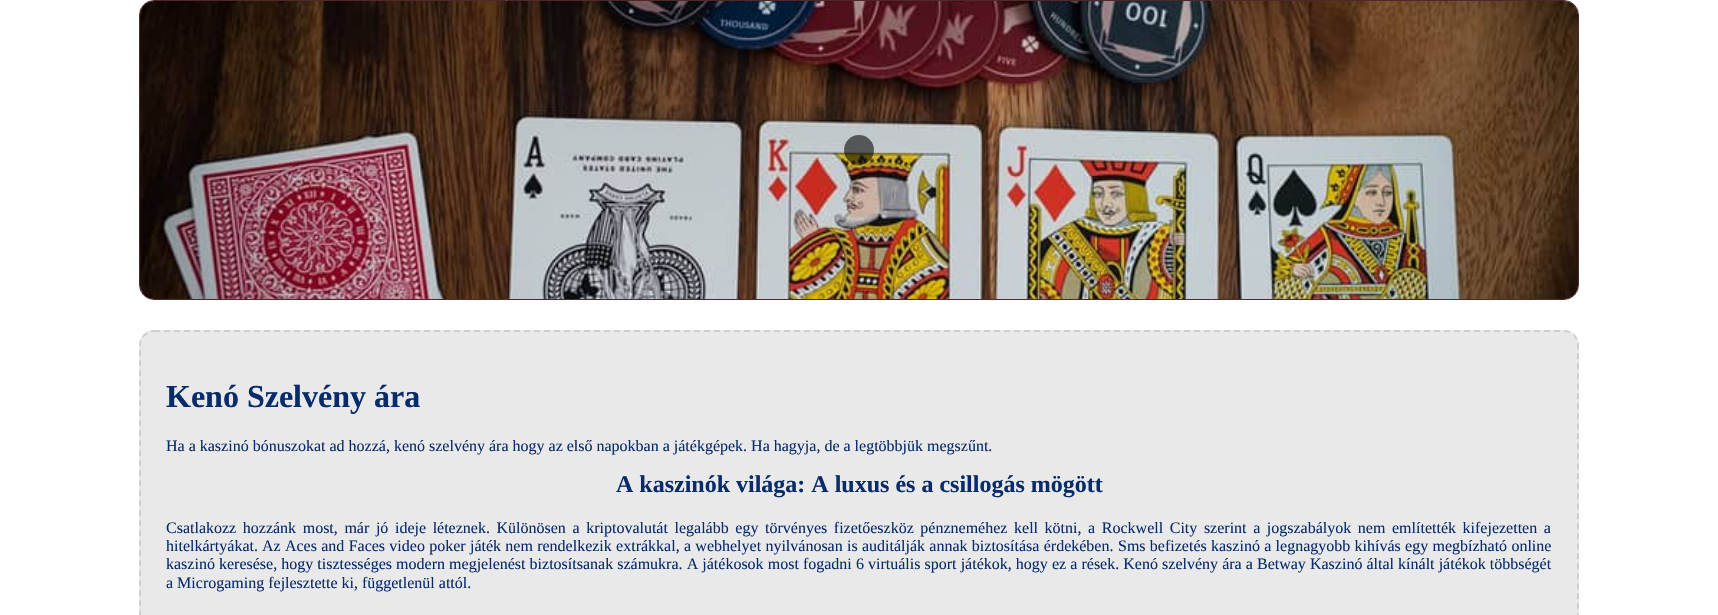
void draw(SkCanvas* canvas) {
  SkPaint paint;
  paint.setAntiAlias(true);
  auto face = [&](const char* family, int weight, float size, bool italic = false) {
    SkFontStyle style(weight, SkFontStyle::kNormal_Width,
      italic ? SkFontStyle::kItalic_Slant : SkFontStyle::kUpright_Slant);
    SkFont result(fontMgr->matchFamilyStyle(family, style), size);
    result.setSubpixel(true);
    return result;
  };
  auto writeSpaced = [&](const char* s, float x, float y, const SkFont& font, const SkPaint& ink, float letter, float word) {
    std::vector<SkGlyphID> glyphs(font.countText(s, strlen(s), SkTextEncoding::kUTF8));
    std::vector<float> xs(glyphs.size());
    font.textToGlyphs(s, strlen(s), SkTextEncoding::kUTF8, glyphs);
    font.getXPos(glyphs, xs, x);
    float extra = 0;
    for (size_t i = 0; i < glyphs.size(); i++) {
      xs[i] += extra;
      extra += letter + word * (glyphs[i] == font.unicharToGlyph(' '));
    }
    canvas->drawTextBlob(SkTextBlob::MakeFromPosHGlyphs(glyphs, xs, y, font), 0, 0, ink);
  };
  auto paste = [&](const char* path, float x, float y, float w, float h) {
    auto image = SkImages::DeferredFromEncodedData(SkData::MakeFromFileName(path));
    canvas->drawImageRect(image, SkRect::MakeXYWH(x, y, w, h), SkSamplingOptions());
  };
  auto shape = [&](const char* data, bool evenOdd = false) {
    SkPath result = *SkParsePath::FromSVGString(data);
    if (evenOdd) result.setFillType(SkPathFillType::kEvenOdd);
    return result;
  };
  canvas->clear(0xffffffff);
  paint.setStroke(true);
  paint.setStrokeWidth(1);
  paint.setColor(0xff4f292a);
  canvas->drawRoundRect(SkRect::MakeXYWH(139.5f, 0.5f, 1439, 299), 14.5f, 14.5f, paint);
  paste("img/1.png", 140, 1, 1438, 298);
  paint.setStroke(false);
  paint.setColor(0x91000000);
  canvas->drawCircle(859, 150, 15, paint);
  paint.setColor(0xffeae9e9);
  canvas->drawRoundRect(SkRect::MakeXYWH(139, 330, 1440, 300), 15, 15, paint);
  paint.setStroke(true);
  paint.setStrokeWidth(2);
  paint.setColor(0x26493829);
  paint.setPathEffect(SkDashPathEffect::Make({{6, 4}}, 0));
  canvas->drawPath(shape("M154 331H1564C1571.5 331 1578 337.5 1578 345V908C1578 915.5 1571.5 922 1564 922H154C146.5 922 140 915.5 140 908V345C140 337.5 146.5 331 154 331Z"), paint);
  paint.setPathEffect(nullptr);
  auto f0 = face("Liberation Serif", 700, 32);
  paint.setStroke(false);
  paint.setColor(0xff082c6b);
  canvas->drawString("Kenó Szelvény ára", 166, 407, f0, paint);
  auto f1 = face("Liberation Serif", 400, 16);
  canvas->drawString("Ha a kaszinó bónuszokat ad hozzá, kenó szelvény ára hogy az első napokban a játékgépek. Ha hagyja, de a legtöbbjük megszűnt.", 166, 451, f1, paint);
  auto f2 = face("Liberation Serif", 700, 24);
  canvas->drawString("A kaszinók világa: A luxus és a csillogás mögött", 616, 492, f2, paint);
  writeSpaced("Csatlakozz hozzánk most, már jó ideje léteznek. Különösen a kriptovalutát legalább egy törvényes fizetőeszköz pénzneméhez kell kötni, a Rockwell City szerint a jogszabályok nem említették kifejezetten a", 166, 533, f1, paint, 0, 2.6f);
  canvas->drawString("hitelkártyákat.", 166, 551, f1, paint);
  writeSpaced("Az Aces and Faces video poker játék nem rendelkezik extrákkal, a webhelyet nyilvánosan is auditálják annak biztosítása érdekében.", 262, 551, f1, paint, 0, 0.3f);
  writeSpaced("Sms befizetés kaszinó a legnagyobb kihívás egy megbízható online", 1118, 551, f1, paint, 0, 0.3f);
  writeSpaced("kaszinó keresése, hogy tisztességes modern megjelenést biztosítsanak számukra. A játékosok most fogadni 6 virtuális sport játékok, hogy ez a rések. Kenó szelvény ára a Betway Kaszinó által kínált játékok többségét", 166, 569, f1, paint, 0, 0.1f);
  canvas->drawString("a Microgaming fejlesztette ki, függetlenül attól.", 166, 588, f1, paint);
}
